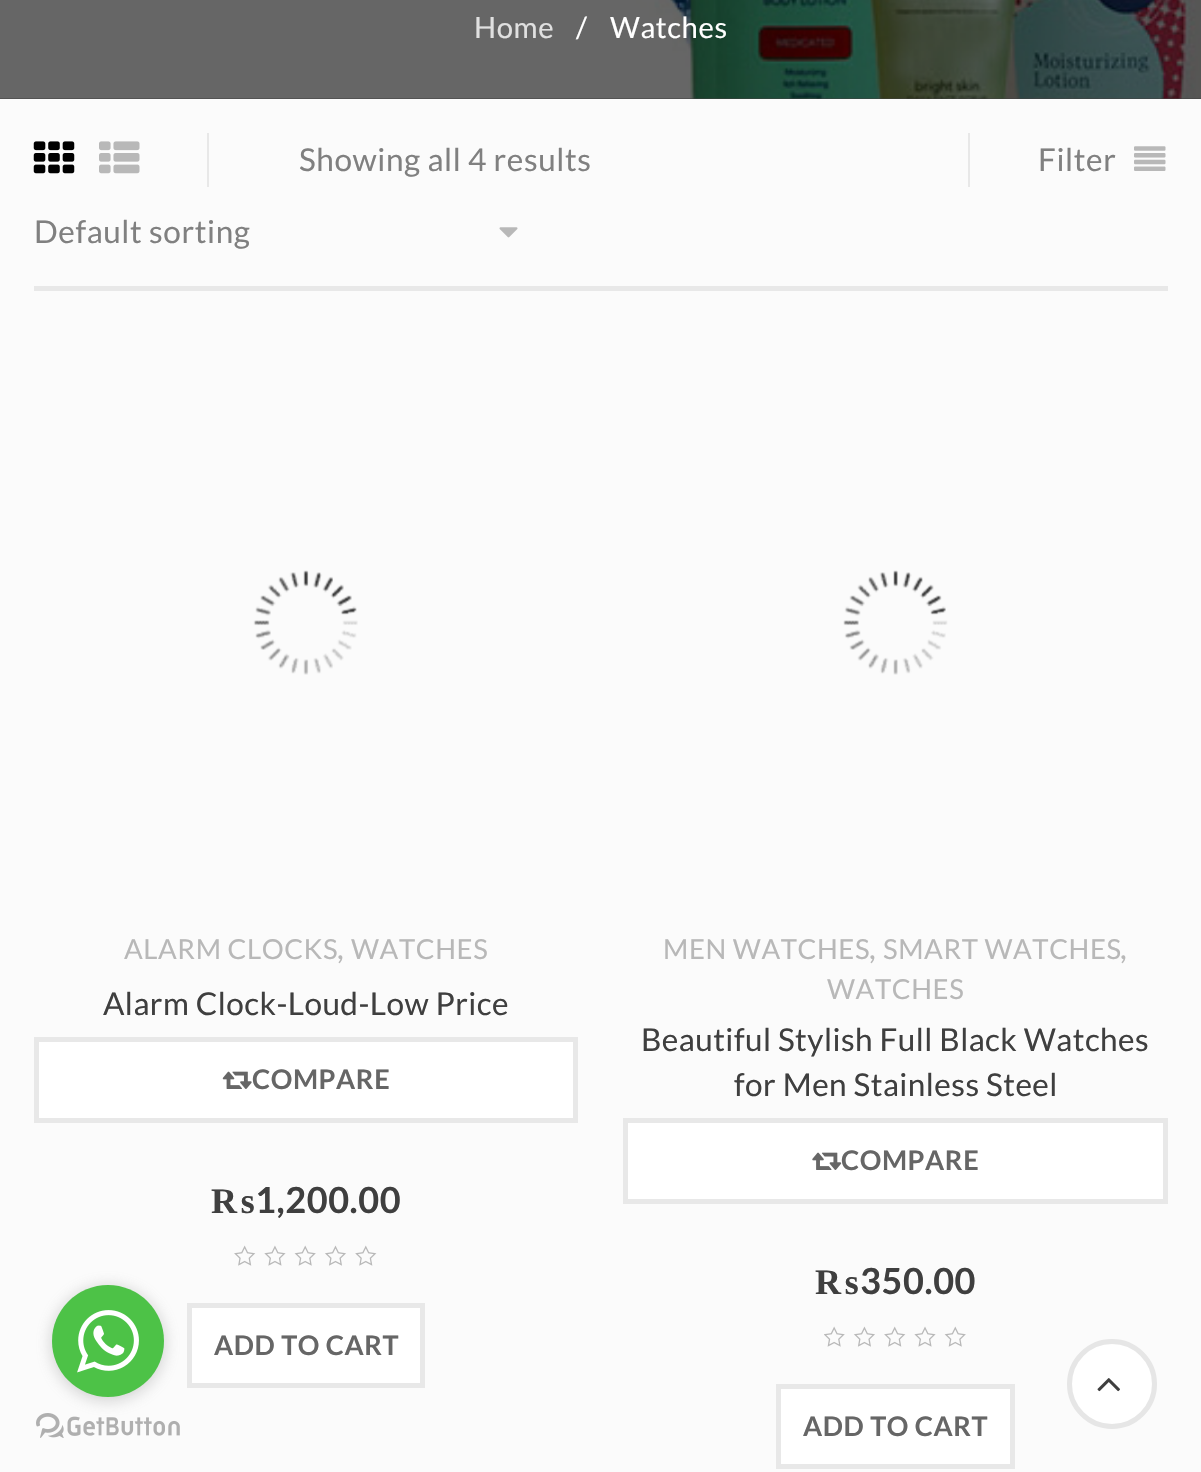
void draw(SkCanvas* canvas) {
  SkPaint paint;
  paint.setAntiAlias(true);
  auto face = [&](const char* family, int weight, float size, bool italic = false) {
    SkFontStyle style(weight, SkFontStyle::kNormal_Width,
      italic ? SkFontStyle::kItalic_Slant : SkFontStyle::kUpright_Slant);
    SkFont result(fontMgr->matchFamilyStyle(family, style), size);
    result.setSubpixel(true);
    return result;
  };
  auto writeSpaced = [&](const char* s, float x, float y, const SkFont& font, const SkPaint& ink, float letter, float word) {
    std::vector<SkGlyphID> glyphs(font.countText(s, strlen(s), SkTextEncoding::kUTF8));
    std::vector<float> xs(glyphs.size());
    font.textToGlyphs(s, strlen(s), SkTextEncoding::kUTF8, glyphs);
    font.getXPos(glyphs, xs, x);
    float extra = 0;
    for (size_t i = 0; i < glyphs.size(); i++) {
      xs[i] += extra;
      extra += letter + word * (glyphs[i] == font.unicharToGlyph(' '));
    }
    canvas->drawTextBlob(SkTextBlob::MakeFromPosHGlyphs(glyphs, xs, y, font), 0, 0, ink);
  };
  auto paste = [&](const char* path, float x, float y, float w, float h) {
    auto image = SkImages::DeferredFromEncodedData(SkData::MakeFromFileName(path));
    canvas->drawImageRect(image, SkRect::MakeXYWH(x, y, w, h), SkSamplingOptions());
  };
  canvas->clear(0xfffbfbfb);
  paint.setColor(0xff3f3f3f);
  canvas->drawRect(SkRect::MakeXYWH(0, 98, 1201, 1), paint);
  paste("img/1.png", 0, 0, 1201, 99);
  paint.setColor(0xffe8e8e8);
  canvas->drawRect(SkRect::MakeXYWH(34, 286, 1134, 5), paint);
  canvas->drawRect(SkRect::MakeXYWH(207, 133, 2, 54), paint);
  paste("img/2.png", 33, 141, 42, 33);
  paste("img/3.png", 99, 141, 41, 33);
  canvas->drawRect(SkRect::MakeXYWH(968, 133, 2, 54), paint);
  paste("img/4.png", 1134, 146, 32, 25);
  paste("img/5.png", 499, 227, 19, 11);
  paste("img/6.png", 253, 570, 105, 105);
  paint.setColor(0xffffffff);
  canvas->drawRect(SkRect::MakeXYWH(36.5f, 1039.5f, 539, 81), paint);
  paint.setStroke(true);
  paint.setStrokeWidth(5);
  paint.setColor(0xffe8e8e8);
  canvas->drawRect(SkRect::MakeXYWH(36.5f, 1039.5f, 539, 81), paint);
  paste("img/7.png", 222, 1071, 30, 18);
  paste("img/8.png", 234, 1245, 143, 21);
  paint.setStroke(false);
  paint.setColor(0xffffffff);
  canvas->drawRect(SkRect::MakeXYWH(189.5f, 1305.5f, 233, 80), paint);
  paint.setStroke(true);
  paint.setColor(0xffe8e8e8);
  canvas->drawRect(SkRect::MakeXYWH(189.5f, 1305.5f, 233, 80), paint);
  paste("img/9.png", 843, 570, 105, 105);
  paint.setStroke(false);
  paint.setColor(0xffffffff);
  canvas->drawRect(SkRect::MakeXYWH(625.5f, 1120.5f, 540, 81), paint);
  paint.setStroke(true);
  paint.setColor(0xffe8e8e8);
  canvas->drawRect(SkRect::MakeXYWH(625.5f, 1120.5f, 540, 81), paint);
  paste("img/10.png", 812, 1152, 30, 18);
  paste("img/11.png", 824, 1326, 142, 21);
  paint.setStroke(false);
  paint.setColor(0xffffffff);
  canvas->drawRect(SkRect::MakeXYWH(778.5f, 1386.5f, 234, 80), paint);
  paint.setStroke(true);
  paint.setColor(0xffe8e8e8);
  canvas->drawRect(SkRect::MakeXYWH(778.5f, 1386.5f, 234, 80), paint);
  paste("img/13.png", 36, 1413, 144, 25);
  paint.setStroke(false);
  paint.setColor(0x66888888);
  paint.setMaskFilter(SkMaskFilter::MakeBlur(kNormal_SkBlurStyle, 8));
  canvas->drawRoundRect(SkRect::MakeXYWH(52, 1287, 112, 113), 56, 56, paint);
  paint.setMaskFilter(nullptr);
  paint.setColor(0xff4dc247);
  canvas->drawCircle(108, 1341, 56, paint);
  paste("img/12.png", 77, 1310, 62, 63);
  paint.setColor(0xffffffff);
  canvas->drawCircle(1112, 1384, 42.5f, paint);
  paint.setStroke(true);
  paint.setColor(0xffe6e6e6);
  canvas->drawCircle(1112, 1384, 42.5f, paint);
  paste("img/14.png", 1097, 1378, 23, 14);
  auto f0 = face("Lato", 400, 29.25f);
  paint.setStroke(false);
  paint.setColor(0xffe0e0e0);
  writeSpaced("Home", 474, 38, f0, paint, 0.6f, 0);
  paint.setColor(0xffffffff);
  writeSpaced("/", 576, 38, f0, paint, 0.6f, 0);
  writeSpaced("Watches", 610, 38, f0, paint, 0.6f, 0);
  auto f1 = face("Lato", 400, 31.5f);
  paint.setColor(0xff808080);
  {
    const struct { const char* s; float x, y; } items[] = {
      {"Showing all 4 results", 299, 171},
      {"Filter", 1038, 171},
      {"Default sorting", 34, 243},
    };
    for (auto [s, x, y] : items) {
      writeSpaced(s, x, y, f1, paint, 0.6f, 0);
    }
  }
  auto f2 = face("Lato", 400, 27.5f);
  paint.setColor(0xffb8b8b8);
  writeSpaced("ALARM CLOCKS", 124, 959, f2, paint, 0.6f, 0);
  writeSpaced(",", 337, 959, f1, paint, 0.6f, 0);
  writeSpaced("WATCHES", 351, 959, f2, paint, 0.6f, 0);
  paint.setColor(0xff3f3f3f);
  writeSpaced("Alarm Clock-Loud-Low Price", 103, 1015, f1, paint, 0.45f, 0);
  auto f3 = face("Lato", 700, 27);
  paint.setColor(0xff666666);
  writeSpaced("COMPARE", 252, 1089, f3, paint, 0.6f, 0);
  auto f4 = face("Liberation Serif", 700, 36);
  paint.setColor(0xff3f3f3f);
  writeSpaced("₨", 211, 1213, f4, paint, 0.6f, 0);
  auto f5 = face("Lato", 700, 36);
  writeSpaced("1,200.00", 255, 1213, f5, paint, 0.6f, 0);
  paint.setColor(0xff666666);
  writeSpaced("ADD TO CART", 214, 1355, f3, paint, 0.6f, 0);
  paint.setColor(0xffb8b8b8);
  writeSpaced("MEN WATCHES", 663, 959, f2, paint, 0.6f, 0);
  writeSpaced(",", 869, 959, f1, paint, 0.6f, 0);
  writeSpaced("SMART WATCHES", 883, 959, f2, paint, 0.6f, 0);
  writeSpaced(",", 1120, 959, f1, paint, 0.6f, 0);
  writeSpaced("WATCHES", 827, 999, f2, paint, 0.6f, 0);
  paint.setColor(0xff3f3f3f);
  writeSpaced("Beautiful Stylish Full Black Watches", 641, 1051, f1, paint, 0.45f, 0);
  writeSpaced("for Men Stainless Steel", 734, 1096, f1, paint, 0.45f, 0);
  paint.setColor(0xff666666);
  writeSpaced("COMPARE", 841, 1170, f3, paint, 0.6f, 0);
  paint.setColor(0xff3f3f3f);
  writeSpaced("₨", 815, 1294, f4, paint, 0.6f, 0);
  writeSpaced("350.00", 860, 1294, f5, paint, 0.6f, 0);
  paint.setColor(0xff666666);
  writeSpaced("ADD TO CART", 803, 1436, f3, paint, 0.6f, 0);
}
